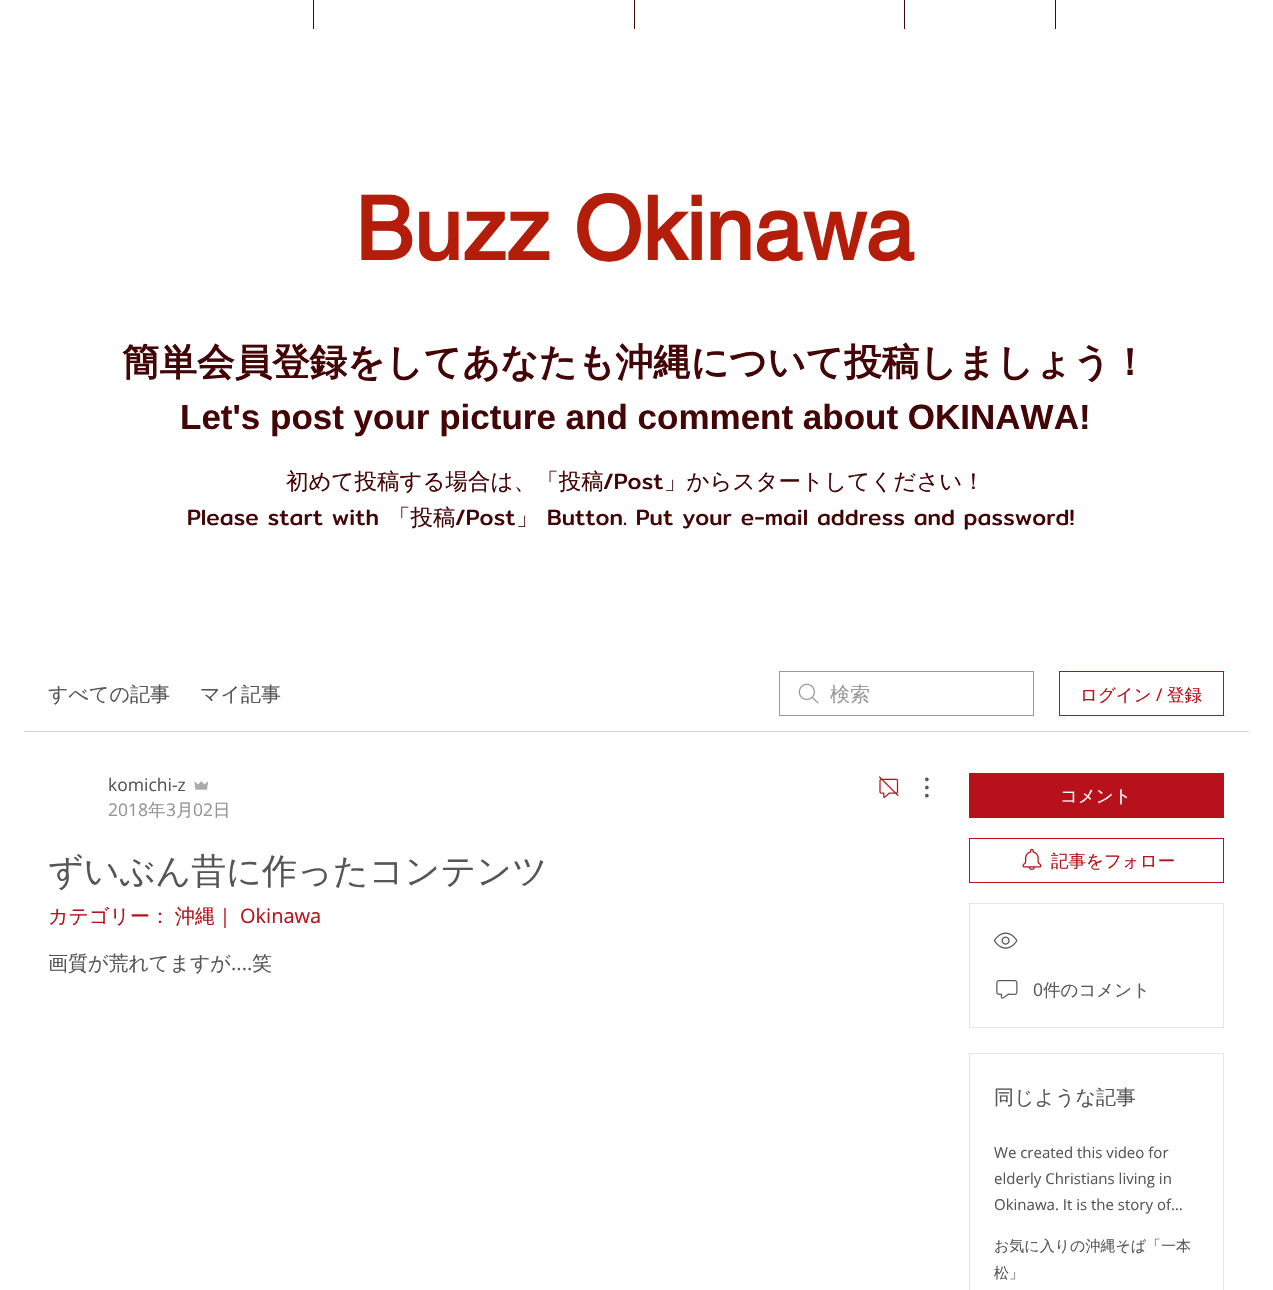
void draw(SkCanvas* canvas) {
  SkPaint paint;
  paint.setAntiAlias(true);
  auto face = [&](const char* family, int weight, float size, bool italic = false) {
    SkFontStyle style(weight, SkFontStyle::kNormal_Width,
      italic ? SkFontStyle::kItalic_Slant : SkFontStyle::kUpright_Slant);
    SkFont result(fontMgr->matchFamilyStyle(family, style), size);
    result.setSubpixel(true);
    return result;
  };
  auto paste = [&](const char* path, float x, float y, float w, float h) {
    auto image = SkImages::DeferredFromEncodedData(SkData::MakeFromFileName(path));
    canvas->drawImageRect(image, SkRect::MakeXYWH(x, y, w, h), SkSamplingOptions());
  };
  canvas->clear(0xffffffff);
  {
    const struct { float x, y, w, h; SkColor color; } items[] = {
      {313, 0, 1, 29, 0xff440506},
      {634, 0, 1, 29, 0xff440506},
      {904, 0, 1, 29, 0xff440506},
      {1055, 0, 1, 29, 0xff440506},
      {24, 731, 1225, 1, 0xffdacdcd},
    };
    for (auto [x, y, w, h, color] : items) {
      paint.setColor(color);
      canvas->drawRect(SkRect::MakeXYWH(x, y, w, h), paint);
    }
  }
  paste("img/1.png", 798, 683, 21, 21);
  paint.setStroke(true);
  paint.setStrokeWidth(1);
  paint.setColor(0xff9a9a9a);
  canvas->drawRect(SkRect::MakeXYWH(779.5f, 671.5f, 254, 44), paint);
  paint.setColor(0xffb7121b);
  canvas->drawRect(SkRect::MakeXYWH(1059.5f, 671.5f, 164, 44), paint);
  paste("img/2.png", 194, 781, 14, 9);
  paste("img/3.png", 879, 776, 20, 22);
  paste("img/4.png", 925, 777, 4, 21);
  paint.setStroke(false);
  canvas->drawRect(SkRect::MakeXYWH(969, 773, 255, 45), paint);
  paint.setStroke(true);
  canvas->drawRect(SkRect::MakeXYWH(969.5f, 838.5f, 254, 44), paint);
  paste("img/5.png", 1022, 848, 20, 22);
  paint.setColor(0xffe6e6e6);
  canvas->drawRect(SkRect::MakeXYWH(969.5f, 903.5f, 254, 124), paint);
  paste("img/6.png", 993, 932, 25, 17);
  paste("img/7.png", 996, 980, 22, 19);
  canvas->drawRect(SkRect::MakeXYWH(969.5f, 1053.5f, 254, 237), paint);
  auto f0 = face("helvetica", 700, 87.5f);
  paint.setStroke(false);
  paint.setColor(0xffb31d09);
  canvas->drawString("Buzz Okinawa", 355, 260, f0, paint);
  auto f1 = face("WenQuanYi Zen Hei", 700, 37.5f);
  paint.setColor(0xff440506);
  canvas->drawString("簡単会員登録をしてあなたも沖縄について投稿しましょう！", 122, 375, f1, paint);
  auto f2 = face("Liberation Sans", 700, 35);
  canvas->drawString("Let's post your picture and comment about OKINAWA!", 180, 429, f2, paint);
  auto f3 = face("WenQuanYi Zen Hei", 500, 22.5f);
  canvas->drawString("初めて投稿する場合は、「投稿", 286, 489, f3, paint);
  auto f4 = face("Mitr", 400, 22.5f);
  canvas->drawString("/Post", 603, 489, f4, paint);
  canvas->drawString("」からスタートしてください！", 664, 489, f3, paint);
  canvas->drawString("Please start with", 187, 525, f4, paint);
  canvas->drawString("「投稿", 388, 525, f3, paint);
  canvas->drawString("/Post", 455, 525, f4, paint);
  canvas->drawString("」", 516, 525, f3, paint);
  canvas->drawString("Button. Put your e-mail address and password!", 547, 525, f4, paint);
  auto f5 = face("WenQuanYi Zen Hei", 500, 20);
  paint.setColor(0xff565656);
  canvas->drawString("すべての記事", 48, 701, f5, paint);
  canvas->drawString("マイ記事", 200, 701, f5, paint);
  paint.setColor(0xff9a9a9a);
  canvas->drawString("検索", 830, 701, f5, paint);
  auto f6 = face("WenQuanYi Zen Hei", 500, 17.5f);
  paint.setColor(0xffb7121b);
  canvas->drawString("ログイン", 1080, 701, f6, paint);
  auto f7 = face("Open Sans", 400, 17.5f);
  canvas->drawString("/", 1156, 701, f7, paint);
  canvas->drawString("登録", 1167, 701, f6, paint);
  paint.setColor(0xff565656);
  canvas->drawString("komichi-z", 108, 791, f7, paint);
  paint.setColor(0xff939393);
  canvas->drawString("2018", 108, 816, f7, paint);
  canvas->drawString("年", 148, 816, f6, paint);
  canvas->drawString("3", 166, 816, f7, paint);
  canvas->drawString("月", 176, 816, f6, paint);
  canvas->drawString("02", 193, 816, f7, paint);
  canvas->drawString("日", 213, 816, f6, paint);
  auto f8 = face("WenQuanYi Zen Hei", 500, 35);
  paint.setColor(0xff565656);
  canvas->drawString("ずいぶん昔に作ったコンテンツ", 48, 883, f8, paint);
  paint.setColor(0xffb7121b);
  canvas->drawString("カテゴリー：", 48, 923, f5, paint);
  canvas->drawString("沖縄｜", 175, 923, f5, paint);
  auto f9 = face("Open Sans", 400, 20);
  canvas->drawString("Okinawa", 240, 923, f9, paint);
  paint.setColor(0xff565656);
  canvas->drawString("画質が荒れてますが", 48, 970, f5, paint);
  canvas->drawString("....", 231, 970, f9, paint);
  canvas->drawString("笑", 252, 970, f5, paint);
  paint.setColor(0xffffffff);
  canvas->drawString("コメント", 1060, 802, f6, paint);
  paint.setColor(0xffb7121b);
  canvas->drawString("記事をフォロー", 1051, 867, f6, paint);
  paint.setColor(0xff565656);
  canvas->drawString("0", 1033, 996, f7, paint);
  canvas->drawString("件のコメント", 1043, 996, f6, paint);
  canvas->drawString("同じような記事", 994, 1104, f5, paint);
  auto f10 = face("Open Sans", 400, 15);
  {
    const struct { const char* s; float x, y; } items[] = {
      {"We created this video for", 994, 1158},
      {"elderly Christians living in", 994, 1184},
      {"Okinawa. It is the story of…", 994, 1210},
    };
    for (auto [s, x, y] : items) {
      canvas->drawString(s, x, y, f10, paint);
    }
  }
  auto f11 = face("WenQuanYi Zen Hei", 500, 15);
  canvas->drawString("お気に入りの沖縄そば「一本", 994, 1251, f11, paint);
  canvas->drawString("松」", 994, 1278, f11, paint);
}
